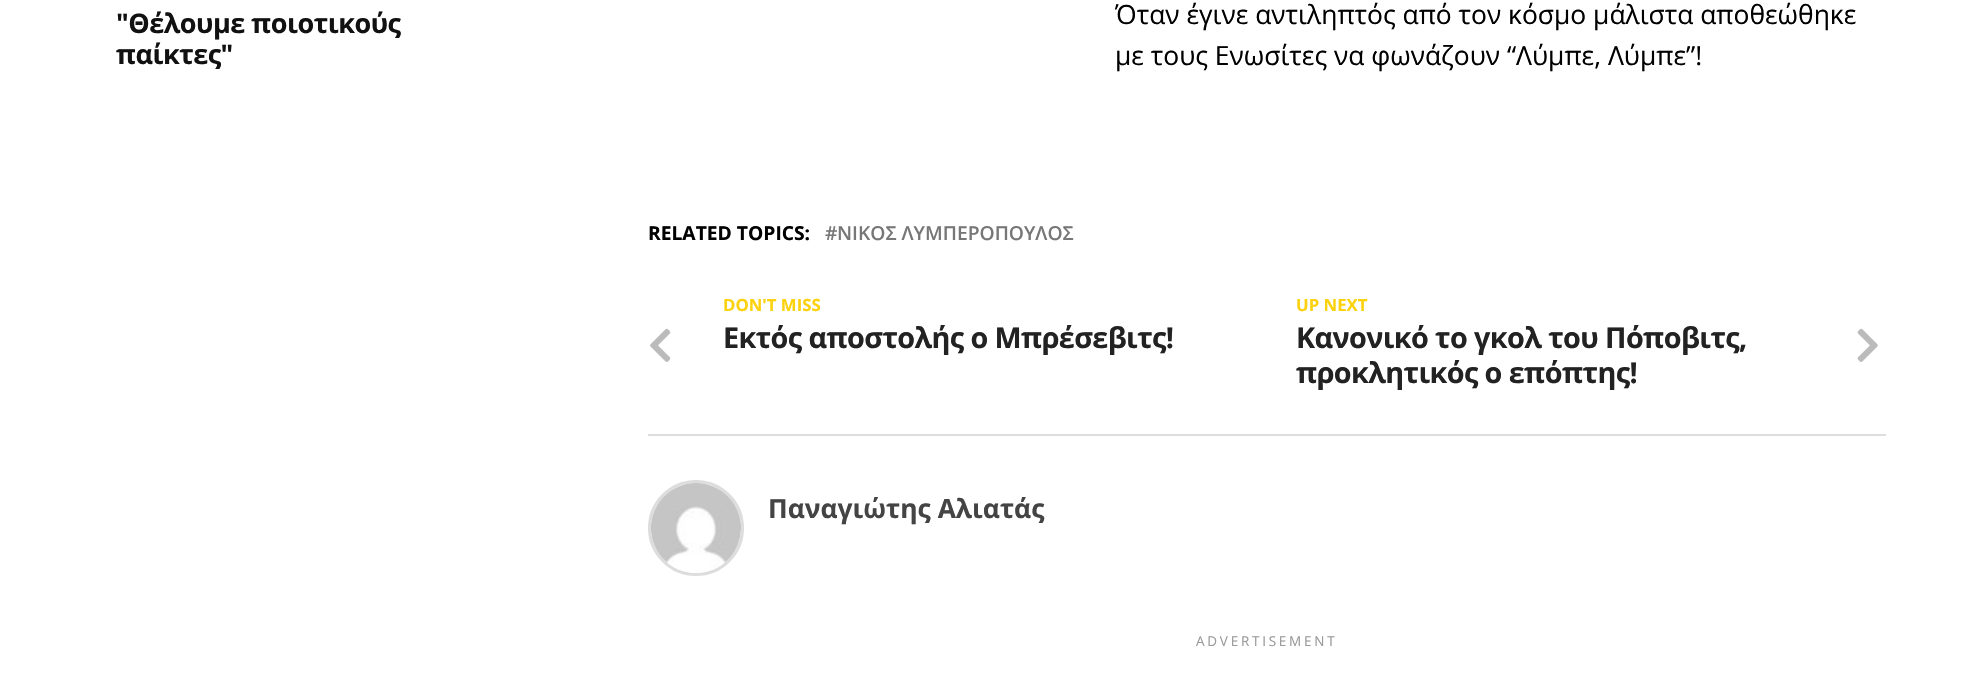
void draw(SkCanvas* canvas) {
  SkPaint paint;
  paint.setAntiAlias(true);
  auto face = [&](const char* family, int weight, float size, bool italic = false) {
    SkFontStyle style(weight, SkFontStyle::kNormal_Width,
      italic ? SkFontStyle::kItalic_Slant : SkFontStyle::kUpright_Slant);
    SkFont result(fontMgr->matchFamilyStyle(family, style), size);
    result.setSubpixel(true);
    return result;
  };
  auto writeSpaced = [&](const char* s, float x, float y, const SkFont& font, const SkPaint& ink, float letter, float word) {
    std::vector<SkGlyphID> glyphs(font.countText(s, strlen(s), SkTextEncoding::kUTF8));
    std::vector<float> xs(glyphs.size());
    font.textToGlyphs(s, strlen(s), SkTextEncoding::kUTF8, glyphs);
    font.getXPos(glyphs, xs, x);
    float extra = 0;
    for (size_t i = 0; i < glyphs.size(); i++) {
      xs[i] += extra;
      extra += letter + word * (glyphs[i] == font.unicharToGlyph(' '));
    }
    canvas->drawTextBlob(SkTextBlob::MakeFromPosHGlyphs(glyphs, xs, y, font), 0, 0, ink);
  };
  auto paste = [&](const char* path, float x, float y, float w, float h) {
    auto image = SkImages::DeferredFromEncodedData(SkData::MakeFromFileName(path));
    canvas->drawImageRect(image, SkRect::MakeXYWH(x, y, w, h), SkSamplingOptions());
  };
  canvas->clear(0xffffffff);
  paint.setColor(0xffdddddd);
  canvas->drawRect(SkRect::MakeXYWH(648, 434, 1238, 2), paint);
  paste("img/1.png", 650, 328, 21, 34);
  paste("img/2.png", 1857, 328, 21, 34);
  paint.setStroke(true);
  paint.setStrokeWidth(3);
  canvas->drawCircle(696, 528, 46.5f, paint);
  paste("img/3.png", 651, 483, 90, 90);
  auto f0 = face("Open Sans", 700, 27);
  paint.setStroke(false);
  paint.setColor(0xff111111);
  writeSpaced("\"Θέλουμε ποιοτικούς", 116, 33, f0, paint, -0.5f, 0);
  writeSpaced("παίκτες\"", 116, 64, f0, paint, -0.5f, 0);
  auto f1 = face("Open Sans", 400, 26.4f);
  paint.setColor(0xff000000);
  canvas->drawString("Όταν έγινε αντιληπτός από τον κόσμο μάλιστα αποθεώθηκε", 1115, 24, f1, paint);
  canvas->drawString("με τους Ενωσίτες να φωνάζουν “Λύμπε, Λύμπε”!", 1115, 65, f1, paint);
  auto f2 = face("Open Sans", 700, 19.25f);
  canvas->drawString("RELATED TOPICS:", 648, 240, f2, paint);
  auto f3 = face("Open Sans", 600, 19.25f);
  paint.setColor(0xff777777);
  canvas->drawString("#", 825, 240, f3, paint);
  canvas->drawString("ΝΙΚΟΣ ΛΥΜΠΕΡΟΠΟΥΛΟΣ", 837, 240, f3, paint);
  auto f4 = face("Open Sans", 700, 16.75f);
  paint.setColor(0xfffcd20f);
  canvas->drawString("DON'T MISS", 723, 311, f4, paint);
  auto f5 = face("Open Sans", 700, 28.75f);
  paint.setColor(0xff222222);
  writeSpaced("Εκτός αποστολής ο Μπρέσεβιτς!", 723, 348, f5, paint, -0.6f, 0);
  paint.setColor(0xfffcd20f);
  canvas->drawString("UP NEXT", 1296, 311, f4, paint);
  paint.setColor(0xff222222);
  writeSpaced("Κανονικό το γκολ του Πόποβιτς,", 1296, 348, f5, paint, -0.6f, 0);
  writeSpaced("προκλητικός ο επόπτης!", 1296, 383, f5, paint, -0.6f, 0);
  auto f6 = face("Open Sans", 700, 26.4f);
  paint.setColor(0xff444444);
  canvas->drawString("Παναγιώτης Αλιατάς", 768, 518, f6, paint);
  auto f7 = face("Open Sans", 400, 13.5f);
  paint.setColor(0xff999999);
  writeSpaced("ADVERTISEMENT", 1196, 646, f7, paint, 2.75f, 0);
}
